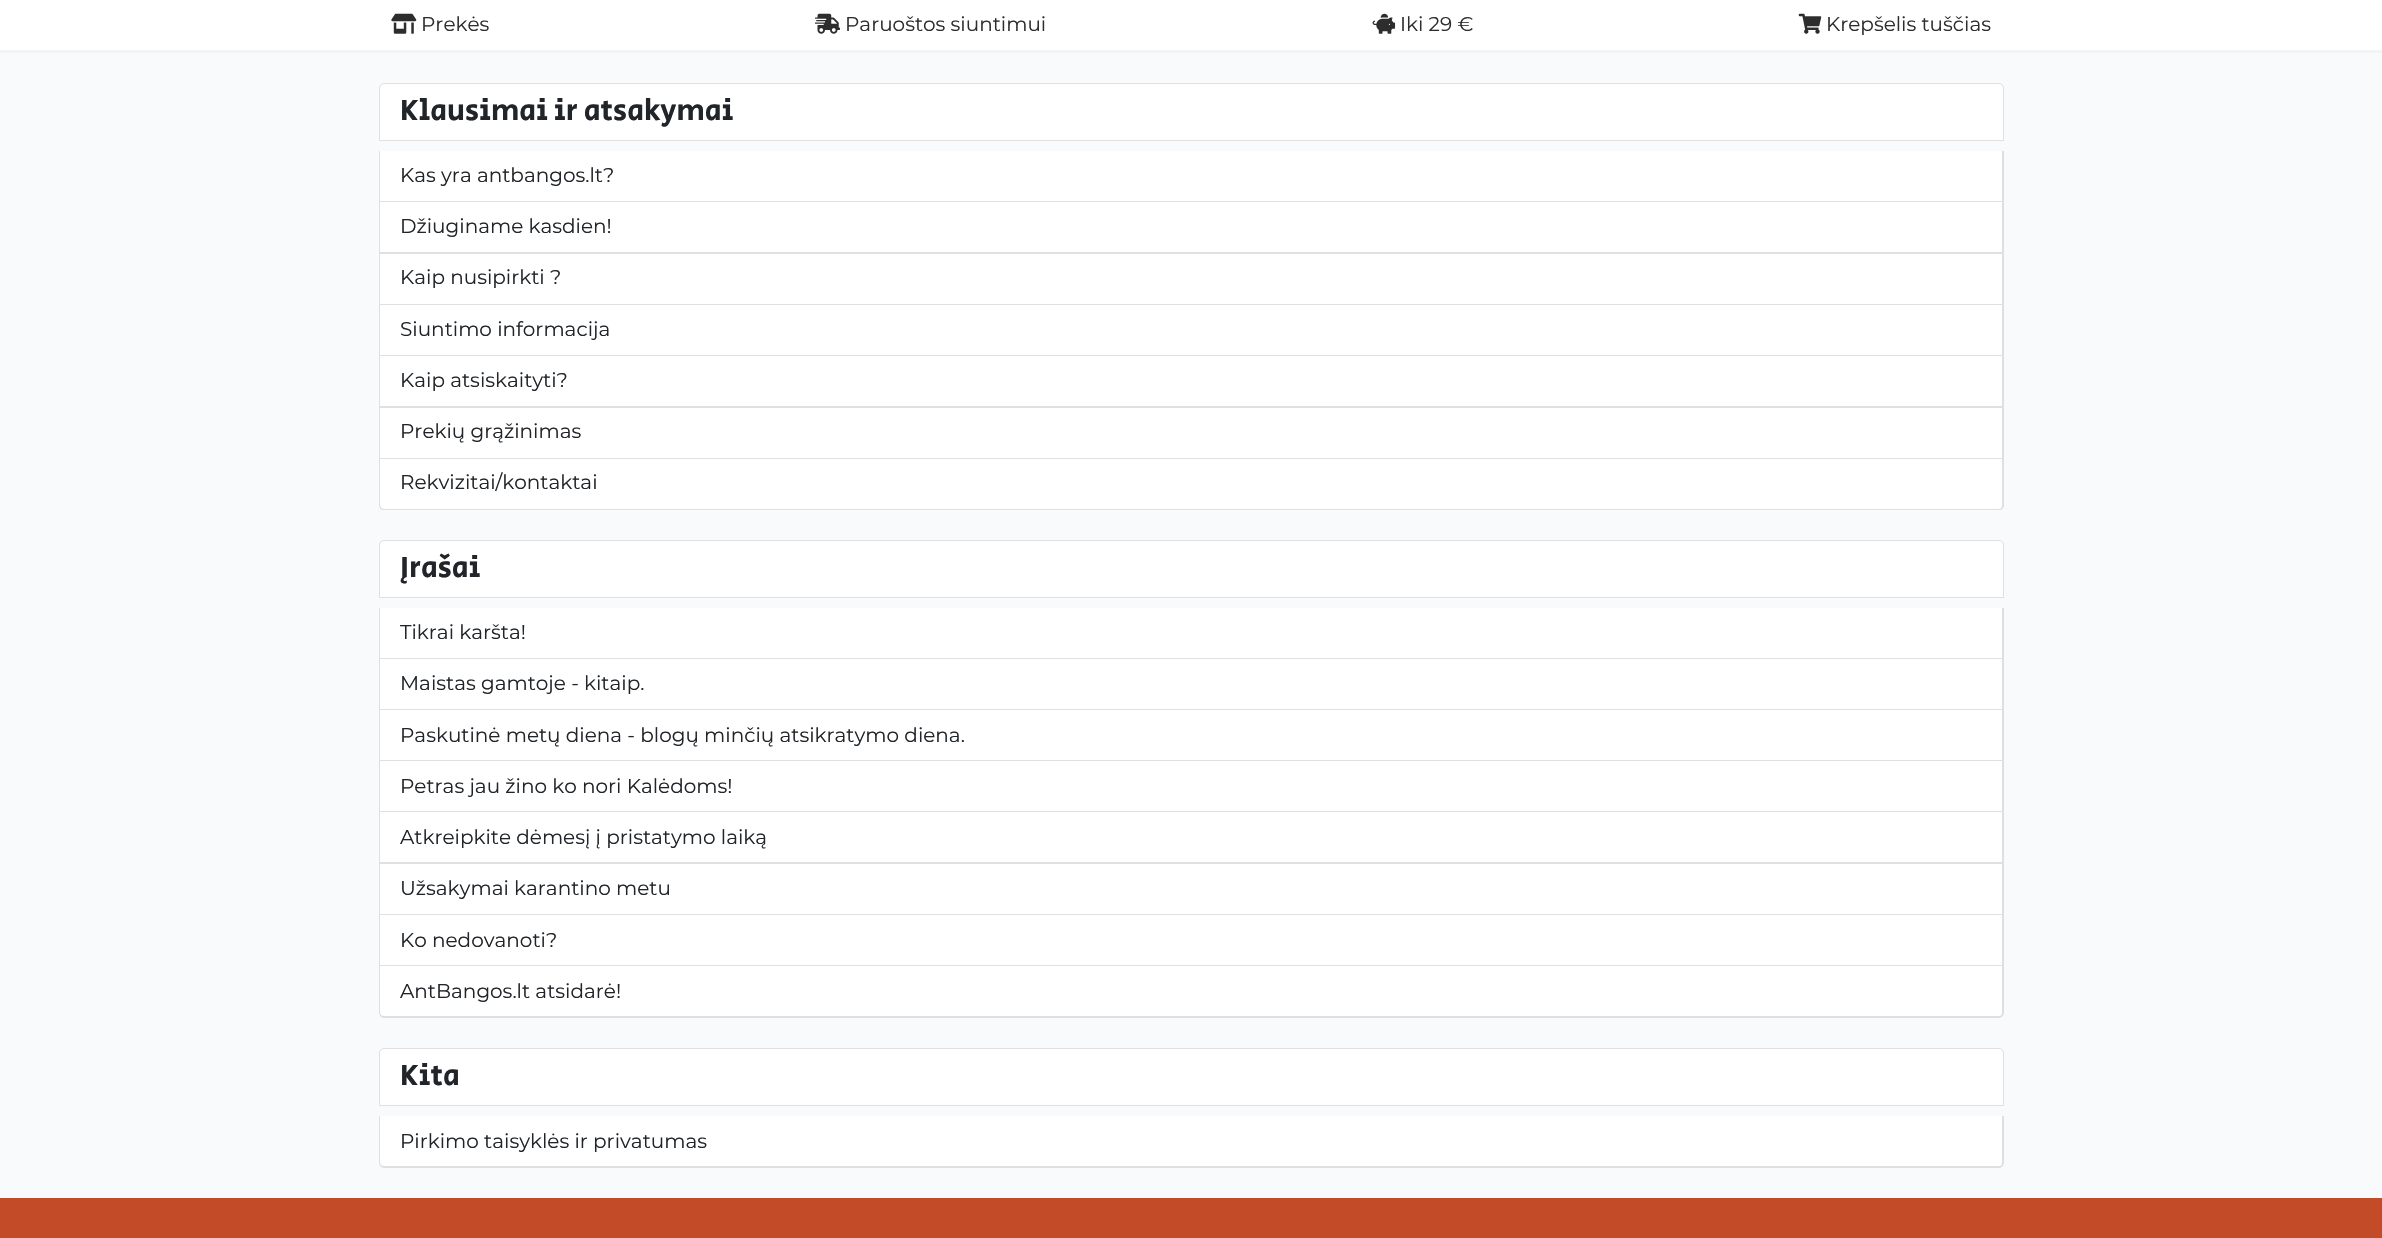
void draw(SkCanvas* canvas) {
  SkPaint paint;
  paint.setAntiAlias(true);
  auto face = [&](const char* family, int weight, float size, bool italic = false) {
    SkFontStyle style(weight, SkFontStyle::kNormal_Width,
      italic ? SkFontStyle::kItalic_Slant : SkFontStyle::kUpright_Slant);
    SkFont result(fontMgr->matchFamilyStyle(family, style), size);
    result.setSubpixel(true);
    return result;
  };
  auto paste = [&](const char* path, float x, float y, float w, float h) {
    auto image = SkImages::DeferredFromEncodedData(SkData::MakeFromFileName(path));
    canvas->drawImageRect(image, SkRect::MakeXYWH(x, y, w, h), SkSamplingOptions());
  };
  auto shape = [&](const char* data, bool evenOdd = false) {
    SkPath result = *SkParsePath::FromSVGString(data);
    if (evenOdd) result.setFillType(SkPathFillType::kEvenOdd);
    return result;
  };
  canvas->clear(0xfff8fafb);
  paint.setColor(0xffffffff);
  canvas->drawRect(SkRect::MakeXYWH(0, 0, 2382, 50), paint);
  paint.setColor(0xfff4f4f4);
  canvas->drawRect(SkRect::MakeXYWH(0, 50, 2382, 3), paint);
  paste("img/1.png", 391, 13, 26, 21);
  paste("img/2.png", 815, 13, 25, 21);
  paste("img/3.png", 1372, 13, 24, 21);
  paste("img/4.png", 1798, 13, 24, 21);
  paint.setColor(0xffffffff);
  canvas->drawPath(shape("M384 83H1999C2002 83 2004 85 2004 88V141H379V88C379 85 381 83 384 83Z"), paint);
  paint.setStroke(true);
  paint.setStrokeWidth(1);
  paint.setColor(0x1f000000);
  canvas->drawPath(shape("M384 83.5H1999C2001.5 83.5 2003.5 85.5 2003.5 88V140.5H379.5V88C379.5 85.5 381.5 83.5 384 83.5Z"), paint);
  paint.setStroke(false);
  paint.setColor(0xffffffff);
  canvas->drawRect(SkRect::MakeXYWH(379, 151, 1625, 308), paint);
  paint.setColor(0xffdfdfdf);
  canvas->drawPath(shape("M2004 151V202L2002 201V151Z"), paint);
  paint.setColor(0x1f000000);
  canvas->drawPath(shape("M2004 202H379L380 201H2002Z"), paint);
  canvas->drawPath(shape("M379 202V151H380V201Z"), paint);
  paint.setColor(0xffdfdfdf);
  canvas->drawPath(shape("M2004 202V254L2002 252V202Z"), paint);
  paint.setColor(0x1f000000);
  canvas->drawPath(shape("M2004 254H379L380 252H2002Z"), paint);
  canvas->drawPath(shape("M379 254V202H380V252Z"), paint);
  paint.setColor(0xffdfdfdf);
  canvas->drawPath(shape("M2004 254V305L2002 304V254Z"), paint);
  paint.setColor(0x1f000000);
  canvas->drawPath(shape("M2004 305H379L380 304H2002Z"), paint);
  canvas->drawPath(shape("M379 305V254H380V304Z"), paint);
  paint.setColor(0xffdfdfdf);
  canvas->drawPath(shape("M2004 305V356L2002 355V305Z"), paint);
  paint.setColor(0x1f000000);
  canvas->drawPath(shape("M2004 356H379L380 355H2002Z"), paint);
  canvas->drawPath(shape("M379 356V305H380V355Z"), paint);
  paint.setColor(0xffdfdfdf);
  canvas->drawPath(shape("M2004 356V408L2002 406V356Z"), paint);
  paint.setColor(0x1f000000);
  canvas->drawPath(shape("M2004 408H379L380 406H2002Z"), paint);
  canvas->drawPath(shape("M379 408V356H380V406Z"), paint);
  paint.setColor(0xffdfdfdf);
  canvas->drawPath(shape("M2004 408V459L2002 458V408Z"), paint);
  paint.setColor(0x1f000000);
  canvas->drawPath(shape("M2004 459H379L380 458H2002Z"), paint);
  canvas->drawPath(shape("M379 459V408H380V458Z"), paint);
  paint.setColor(0xffffffff);
  canvas->drawPath(shape("M379 459H2004V505C2004 508 2002 510 1999 510H384C381 510 379 508 379 505Z"), paint);
  paint.setColor(0x1f000000);
  canvas->drawPath(shape("M379 459H2004V505C2004 508 2002 510 1999 510H384C381 510 379 508 379 505ZM380 459H2002V505C2002 507 2001 509 1999 509H384C382 509 380 507 380 505Z", true), paint);
  paint.setColor(0xffffffff);
  canvas->drawPath(shape("M384 540H1999C2002 540 2004 542 2004 545V598H379V545C379 542 381 540 384 540Z"), paint);
  paint.setStroke(true);
  paint.setColor(0x1f000000);
  canvas->drawPath(shape("M384 540.5H1999C2001.5 540.5 2003.5 542.5 2003.5 545V597.5H379.5V545C379.5 542.5 381.5 540.5 384 540.5Z"), paint);
  paint.setStroke(false);
  paint.setColor(0xffffffff);
  canvas->drawRect(SkRect::MakeXYWH(379, 608, 1625, 358), paint);
  paint.setColor(0xffdfdfdf);
  canvas->drawPath(shape("M2004 608V659L2002 658V608Z"), paint);
  paint.setColor(0x1f000000);
  canvas->drawPath(shape("M2004 659H379L380 658H2002Z"), paint);
  canvas->drawPath(shape("M379 659V608H380V658Z"), paint);
  paint.setColor(0xffdfdfdf);
  canvas->drawPath(shape("M2004 659V710L2002 709V659Z"), paint);
  paint.setColor(0x1f000000);
  canvas->drawPath(shape("M2004 710H379L380 709H2002Z"), paint);
  canvas->drawPath(shape("M379 710V659H380V709Z"), paint);
  paint.setColor(0xffdfdfdf);
  canvas->drawPath(shape("M2004 710V761L2002 760V710Z"), paint);
  paint.setColor(0x1f000000);
  canvas->drawPath(shape("M2004 761H379L380 760H2002Z"), paint);
  canvas->drawPath(shape("M379 761V710H380V760Z"), paint);
  paint.setColor(0xffdfdfdf);
  canvas->drawPath(shape("M2004 761V812L2002 811V761Z"), paint);
  paint.setColor(0x1f000000);
  canvas->drawPath(shape("M2004 812H379L380 811H2002Z"), paint);
  canvas->drawPath(shape("M379 812V761H380V811Z"), paint);
  paint.setColor(0xffdfdfdf);
  canvas->drawPath(shape("M2004 812V864L2002 862V812Z"), paint);
  paint.setColor(0x1f000000);
  canvas->drawPath(shape("M2004 864H379L380 862H2002Z"), paint);
  canvas->drawPath(shape("M379 864V812H380V862Z"), paint);
  paint.setColor(0xffdfdfdf);
  canvas->drawPath(shape("M2004 864V915L2002 914V864Z"), paint);
  paint.setColor(0x1f000000);
  canvas->drawPath(shape("M2004 915H379L380 914H2002Z"), paint);
  canvas->drawPath(shape("M379 915V864H380V914Z"), paint);
  paint.setColor(0xffdfdfdf);
  canvas->drawPath(shape("M2004 915V966L2002 965V915Z"), paint);
  paint.setColor(0x1f000000);
  canvas->drawPath(shape("M2004 966H379L380 965H2002Z"), paint);
  canvas->drawPath(shape("M379 966V915H380V965Z"), paint);
  paint.setColor(0xffffffff);
  canvas->drawPath(shape("M379 966H2004V1013C2004 1016 2002 1018 1999 1018H384C381 1018 379 1016 379 1013Z"), paint);
  paint.setColor(0xffdfdfdf);
  canvas->drawPath(shape("M379 966H2004V1012C2004 1015 2002 1018 1999 1018H384C381 1018 379 1015 379 1012ZM380 966H2002V1012C2002 1015 2001 1016 1999 1016H384C382 1016 380 1015 380 1012Z", true), paint);
  paint.setColor(0xffffffff);
  canvas->drawPath(shape("M384 1048H1999C2002 1048 2004 1050 2004 1053V1106H379V1053C379 1050 381 1048 384 1048Z"), paint);
  paint.setStroke(true);
  paint.setColor(0x1f000000);
  canvas->drawPath(shape("M384 1048.5H1999C2001.5 1048.5 2003.5 1050.5 2003.5 1053V1105.5H379.5V1053C379.5 1050.5 381.5 1048.5 384 1048.5Z"), paint);
  paint.setStroke(false);
  paint.setColor(0xffffffff);
  canvas->drawPath(shape("M379 1116H2004V1163C2004 1166 2002 1168 1999 1168H384C381 1168 379 1166 379 1163Z"), paint);
  paint.setColor(0xffdfdfdf);
  canvas->drawPath(shape("M379 1116H2004V1162C2004 1165 2002 1168 1999 1168H384C381 1168 379 1165 379 1162ZM380 1116H2002V1162C2002 1165 2001 1166 1999 1166H384C382 1166 380 1165 380 1162Z", true), paint);
  paint.setColor(0xffc44b28);
  canvas->drawRect(SkRect::MakeXYWH(0, 1198, 2382, 40), paint);
  auto f0 = face("Montserrat", 400, 20);
  paint.setColor(0xff2d2d2d);
  {
    const struct { const char* s; float x, y; } items[] = {
      {"Prekės", 421, 31},
      {"Paruoštos siuntimui", 845, 31},
      {"Iki 29 €", 1400, 31},
      {"Krepšelis tuščias", 1826, 31},
    };
    for (auto [s, x, y] : items) {
      canvas->drawString(s, x, y, f0, paint);
    }
  }
  auto f1 = face("Secular One", 400, 30);
  paint.setColor(0xff212529);
  canvas->drawString("Klausimai ir atsakymai", 400, 120, f1, paint);
  {
    const struct { const char* s; float x, y; } items[] = {
      {"Kas yra antbangos.lt?", 400, 182},
      {"Džiuginame kasdien!", 400, 233},
      {"Kaip nusipirkti ?", 400, 284},
      {"Siuntimo informacija", 400, 336},
      {"Kaip atsiskaityti?", 400, 387},
      {"Prekių grąžinimas", 400, 438},
      {"Rekvizitai/kontaktai", 400, 489},
    };
    for (auto [s, x, y] : items) {
      canvas->drawString(s, x, y, f0, paint);
    }
  }
  canvas->drawString("Įrašai", 400, 577, f1, paint);
  {
    const struct { const char* s; float x, y; } items[] = {
      {"Tikrai karšta!", 400, 639},
      {"Maistas gamtoje - kitaip.", 400, 690},
      {"Paskutinė metų diena - blogų minčių atsikratymo diena.", 400, 742},
      {"Petras jau žino ko nori Kalėdoms!", 400, 793},
      {"Atkreipkite dėmesį į pristatymo laiką", 400, 844},
      {"Užsakymai karantino metu", 400, 895},
      {"Ko nedovanoti?", 400, 947},
      {"AntBangos.lt atsidarė!", 400, 998},
    };
    for (auto [s, x, y] : items) {
      canvas->drawString(s, x, y, f0, paint);
    }
  }
  canvas->drawString("Kita", 400, 1085, f1, paint);
  canvas->drawString("Pirkimo taisyklės ir privatumas", 400, 1148, f0, paint);
}
